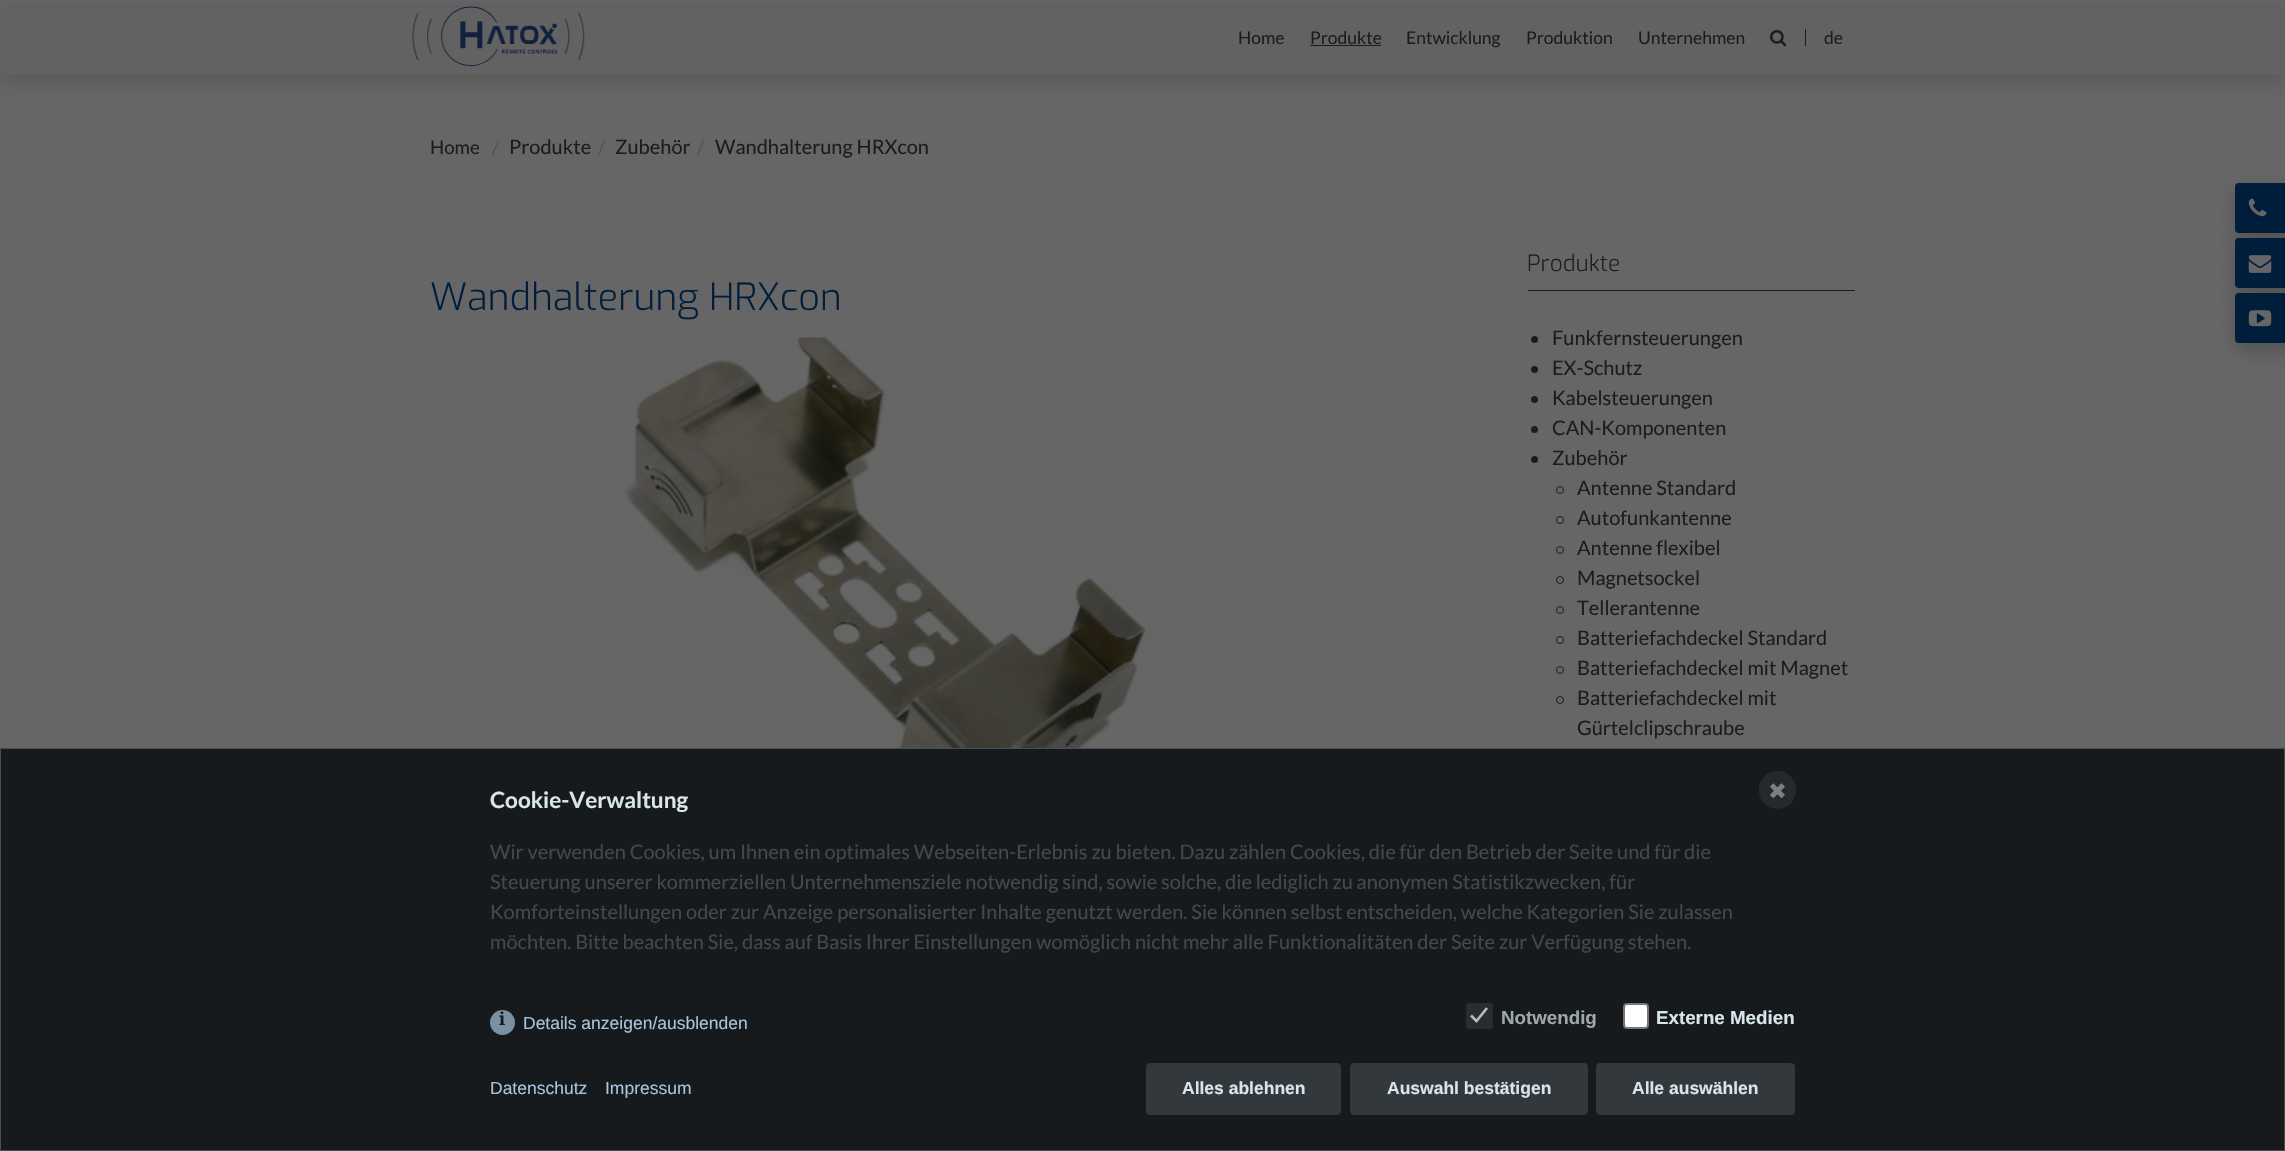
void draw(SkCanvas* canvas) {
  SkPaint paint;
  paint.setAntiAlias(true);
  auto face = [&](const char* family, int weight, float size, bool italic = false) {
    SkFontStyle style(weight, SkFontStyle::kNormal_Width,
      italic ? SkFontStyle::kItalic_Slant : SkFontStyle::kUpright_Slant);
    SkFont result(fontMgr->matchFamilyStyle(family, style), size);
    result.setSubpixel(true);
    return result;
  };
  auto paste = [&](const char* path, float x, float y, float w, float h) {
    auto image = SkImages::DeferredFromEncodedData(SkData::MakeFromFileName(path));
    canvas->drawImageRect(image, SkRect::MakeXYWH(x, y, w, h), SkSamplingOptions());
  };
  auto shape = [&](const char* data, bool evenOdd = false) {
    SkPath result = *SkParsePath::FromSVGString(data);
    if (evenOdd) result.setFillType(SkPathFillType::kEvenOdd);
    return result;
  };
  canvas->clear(0xff666666);
  paint.setColor(0x301b1b1b);
  paint.setMaskFilter(SkMaskFilter::MakeBlur(kNormal_SkBlurStyle, 9.5f));
  canvas->drawRect(SkRect::MakeXYWH(0, 8, 2285, 75), paint);
  paint.setMaskFilter(nullptr);
  paint.setColor(0xff626262);
  canvas->drawRect(SkRect::MakeXYWH(0, 7, 2285, 68), paint);
  paste("img/1.png", 412, 6, 173, 61);
  paint.setColor(0xff1c1c1c);
  canvas->drawRect(SkRect::MakeXYWH(1310, 45, 71, 1), paint);
  paste("img/2.png", 1770, 30, 17, 17);
  canvas->drawRect(SkRect::MakeXYWH(1805, 29, 1, 17), paint);
  paste("img/3.png", 624, 337, 526, 411);
  canvas->drawRect(SkRect::MakeXYWH(1528, 290, 327, 1), paint);
  canvas->drawCircle(1534.5f, 339.5f, 3.5f, paint);
  canvas->drawCircle(1534.5f, 369.5f, 3.5f, paint);
  canvas->drawCircle(1534.5f, 399.5f, 3.5f, paint);
  canvas->drawCircle(1534.5f, 429.5f, 3.5f, paint);
  canvas->drawCircle(1534.5f, 459.5f, 3.5f, paint);
  paint.setStroke(true);
  paint.setStrokeWidth(1);
  canvas->drawCircle(1560, 490, 3.5f, paint);
  canvas->drawCircle(1560, 520, 3.5f, paint);
  canvas->drawCircle(1560, 550, 3.5f, paint);
  canvas->drawCircle(1560, 580, 3.5f, paint);
  canvas->drawCircle(1560, 610, 3.5f, paint);
  canvas->drawCircle(1560, 640, 3.5f, paint);
  canvas->drawCircle(1560, 670, 3.5f, paint);
  canvas->drawCircle(1560, 700, 3.5f, paint);
  paint.setStroke(false);
  paint.setColor(0x451b1b1b);
  paint.setMaskFilter(SkMaskFilter::MakeBlur(kNormal_SkBlurStyle, 9.5f));
  canvas->drawRoundRect(SkRect::MakeXYWH(2235, 190, 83, 50), 4, 4, paint);
  paint.setMaskFilter(nullptr);
  paint.setColor(0xff001d3b);
  canvas->drawRoundRect(SkRect::MakeXYWH(2235, 183, 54, 50), 4, 4, paint);
  paste("img/4.png", 2248, 198, 19, 19);
  paint.setColor(0x451b1b1b);
  paint.setMaskFilter(SkMaskFilter::MakeBlur(kNormal_SkBlurStyle, 9.5f));
  canvas->drawRoundRect(SkRect::MakeXYWH(2235, 245, 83, 50), 4, 4, paint);
  paint.setMaskFilter(nullptr);
  paint.setColor(0xff001d3b);
  canvas->drawRoundRect(SkRect::MakeXYWH(2235, 238, 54, 50), 4, 4, paint);
  paste("img/5.png", 2248, 255, 24, 18);
  paint.setColor(0x451b1b1b);
  paint.setMaskFilter(SkMaskFilter::MakeBlur(kNormal_SkBlurStyle, 9.5f));
  canvas->drawRoundRect(SkRect::MakeXYWH(2235, 300, 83, 50), 4, 4, paint);
  paint.setMaskFilter(nullptr);
  paint.setColor(0xff001d3b);
  canvas->drawRoundRect(SkRect::MakeXYWH(2235, 293, 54, 50), 4, 4, paint);
  paste("img/6.png", 2248, 310, 24, 17);
  paint.setColor(0xff161a1c);
  canvas->drawRect(SkRect::MakeXYWH(0.5f, 748.5f, 2284, 402), paint);
  paint.setStroke(true);
  paint.setColor(0xff434f55);
  canvas->drawRect(SkRect::MakeXYWH(0.5f, 748.5f, 2284, 402), paint);
  paint.setStroke(false);
  paint.setColor(0xff25292c);
  canvas->drawRoundRect(SkRect::MakeXYWH(1760.5f, 772.5f, 34, 35), 17, 17, paint);
  paint.setStroke(true);
  paint.setStrokeWidth(3);
  canvas->drawRoundRect(SkRect::MakeXYWH(1760.5f, 772.5f, 34, 35), 17, 17, paint);
  paint.setStroke(false);
  paint.setColor(0xff7b91a3);
  canvas->drawCircle(502.5f, 1022.5f, 12.5f, paint);
  paint.setColor(0xff2a2d2f);
  canvas->drawRoundRect(SkRect::MakeXYWH(1466, 1003, 27, 26), 4, 4, paint);
  paint.setStroke(true);
  paint.setStrokeWidth(2.6f);
  paint.setColor(0xffb9babb);
  canvas->drawPath(shape("M1471 1015.5L1476.5 1021L1487 1008"), paint);
  paint.setStroke(false);
  paint.setColor(0xffffffff);
  canvas->drawRoundRect(SkRect::MakeXYWH(1624, 1004, 24, 24), 3, 3, paint);
  paint.setStroke(true);
  paint.setStrokeWidth(2);
  paint.setColor(0xff767676);
  canvas->drawRoundRect(SkRect::MakeXYWH(1624, 1004, 24, 24), 3, 3, paint);
  paint.setStroke(false);
  paint.setColor(0xff33383c);
  canvas->drawRoundRect(SkRect::MakeXYWH(1146.5f, 1063.5f, 194, 51), 3.5f, 3.5f, paint);
  paint.setStroke(true);
  paint.setStrokeWidth(1);
  canvas->drawRoundRect(SkRect::MakeXYWH(1146.5f, 1063.5f, 194, 51), 3.5f, 3.5f, paint);
  paint.setStroke(false);
  canvas->drawRoundRect(SkRect::MakeXYWH(1350.5f, 1063.5f, 237, 51), 3.5f, 3.5f, paint);
  paint.setStroke(true);
  canvas->drawRoundRect(SkRect::MakeXYWH(1350.5f, 1063.5f, 237, 51), 3.5f, 3.5f, paint);
  paint.setStroke(false);
  canvas->drawRoundRect(SkRect::MakeXYWH(1596.5f, 1063.5f, 198, 51), 3.5f, 3.5f, paint);
  paint.setStroke(true);
  canvas->drawRoundRect(SkRect::MakeXYWH(1596.5f, 1063.5f, 198, 51), 3.5f, 3.5f, paint);
  auto f0 = face("Lato", 400, 17.5f);
  paint.setStroke(false);
  paint.setColor(0xff1c1c1c);
  {
    const struct { const char* s; float x, y; } items[] = {
      {"Home", 1238, 44},
      {"Produkte", 1310, 44},
      {"Entwicklung", 1406, 44},
      {"Produktion", 1526, 44},
      {"Unternehmen", 1638, 44},
      {"de", 1824, 44},
    };
    for (auto [s, x, y] : items) {
      canvas->drawString(s, x, y, f0, paint);
    }
  }
  auto f1 = face("Lato", 400, 18.75f);
  canvas->drawString("Home", 430, 154, f1, paint);
  paint.setColor(0xff525252);
  canvas->drawString("/", 492, 154, f1, paint);
  auto f2 = face("Lato", 400, 20);
  paint.setColor(0xff1c1c1c);
  canvas->drawString("Produkte", 509, 154, f2, paint);
  paint.setColor(0xff525252);
  canvas->drawString("/", 598, 154, f2, paint);
  paint.setColor(0xff1c1c1c);
  canvas->drawString("Zubehör", 615, 154, f2, paint);
  paint.setColor(0xff525252);
  canvas->drawString("/", 697, 154, f2, paint);
  paint.setColor(0xff1c1c1c);
  canvas->drawString("Wandhalterung HRXcon", 715, 154, f2, paint);
  auto f3 = face("Exo", 300, 37.5f);
  paint.setColor(0xff001d3b);
  canvas->drawString("Wandhalterung HRXcon", 430, 310, f3, paint);
  auto f4 = face("Exo", 300, 22.5f);
  paint.setColor(0xff1c1c1c);
  canvas->drawString("Produkte", 1527, 271, f4, paint);
  {
    const struct { const char* s; float x, y; } items[] = {
      {"Funkfernsteuerungen", 1552, 345},
      {"EX-Schutz", 1552, 375},
      {"Kabelsteuerungen", 1552, 405},
      {"CAN-Komponenten", 1552, 435},
      {"Zubehör", 1552, 465},
      {"Antenne Standard", 1577, 495},
      {"Autofunkantenne", 1577, 525},
      {"Antenne flexibel", 1577, 555},
      {"Magnetsockel", 1577, 585},
      {"Tellerantenne", 1577, 615},
      {"Batteriefachdeckel Standard", 1577, 645},
      {"Batteriefachdeckel mit Magnet", 1577, 675},
      {"Batteriefachdeckel mit", 1577, 705},
      {"Gürtelclipschraube", 1577, 735},
    };
    for (auto [s, x, y] : items) {
      canvas->drawString(s, x, y, f2, paint);
    }
  }
  auto f5 = face("DejaVu Sans", 400, 22.5f);
  paint.setColor(0xff778083);
  canvas->drawString("✖", 1768, 799, f5, paint);
  auto f6 = face("Lato", 700, 22.5f);
  paint.setColor(0xffd8e5ea);
  canvas->drawString("Cookie-Verwaltung", 490, 808, f6, paint);
  paint.setColor(0xff474747);
  {
    const struct { const char* s; float x, y; } items[] = {
      {"Wir verwenden Cookies, um Ihnen ein optimales Webseiten-Erlebnis zu bieten. Dazu zählen Cookies, die für den Betrieb der Seite und für die", 490, 859},
      {"Steuerung unserer kommerziellen Unternehmensziele notwendig sind, sowie solche, die lediglich zu anonymen Statistikzwecken, für", 490, 889},
      {"Komforteinstellungen oder zur Anzeige personalisierter Inhalte genutzt werden. Sie können selbst entscheiden, welche Kategorien Sie zulassen", 490, 919},
      {"möchten. Bitte beachten Sie, dass auf Basis Ihrer Einstellungen womöglich nicht mehr alle Funktionalitäten der Seite zur Verfügung stehen.", 490, 949},
    };
    for (auto [s, x, y] : items) {
      canvas->drawString(s, x, y, f2, paint);
    }
  }
  auto f7 = face("Noto Serif", 700, 17.5f);
  paint.setColor(0xff161a1c);
  canvas->drawString("i", 499, 1025, f7, paint);
  auto f8 = face("Liberation Sans", 400, 17.5f);
  paint.setColor(0xffa6c4dd);
  canvas->drawString("Details anzeigen/ausblenden", 523, 1029, f8, paint);
  auto f9 = face("Liberation Sans", 700, 18.75f);
  paint.setColor(0xff9ea8ac);
  canvas->drawString("Notwendig", 1501, 1024, f9, paint);
  paint.setColor(0xffd8e5ea);
  canvas->drawString("Externe Medien", 1656, 1024, f9, paint);
  paint.setColor(0xffa6c4dd);
  canvas->drawString("Datenschutz", 490, 1094, f8, paint);
  canvas->drawString("Impressum", 605, 1094, f8, paint);
  auto f10 = face("Liberation Sans", 700, 17.5f);
  paint.setColor(0xffd8e5ea);
  {
    const struct { const char* s; float x, y; } items[] = {
      {"Alles ablehnen", 1182, 1094},
      {"Auswahl bestätigen", 1387, 1094},
      {"Alle auswählen", 1632, 1094},
    };
    for (auto [s, x, y] : items) {
      canvas->drawString(s, x, y, f10, paint);
    }
  }
}
